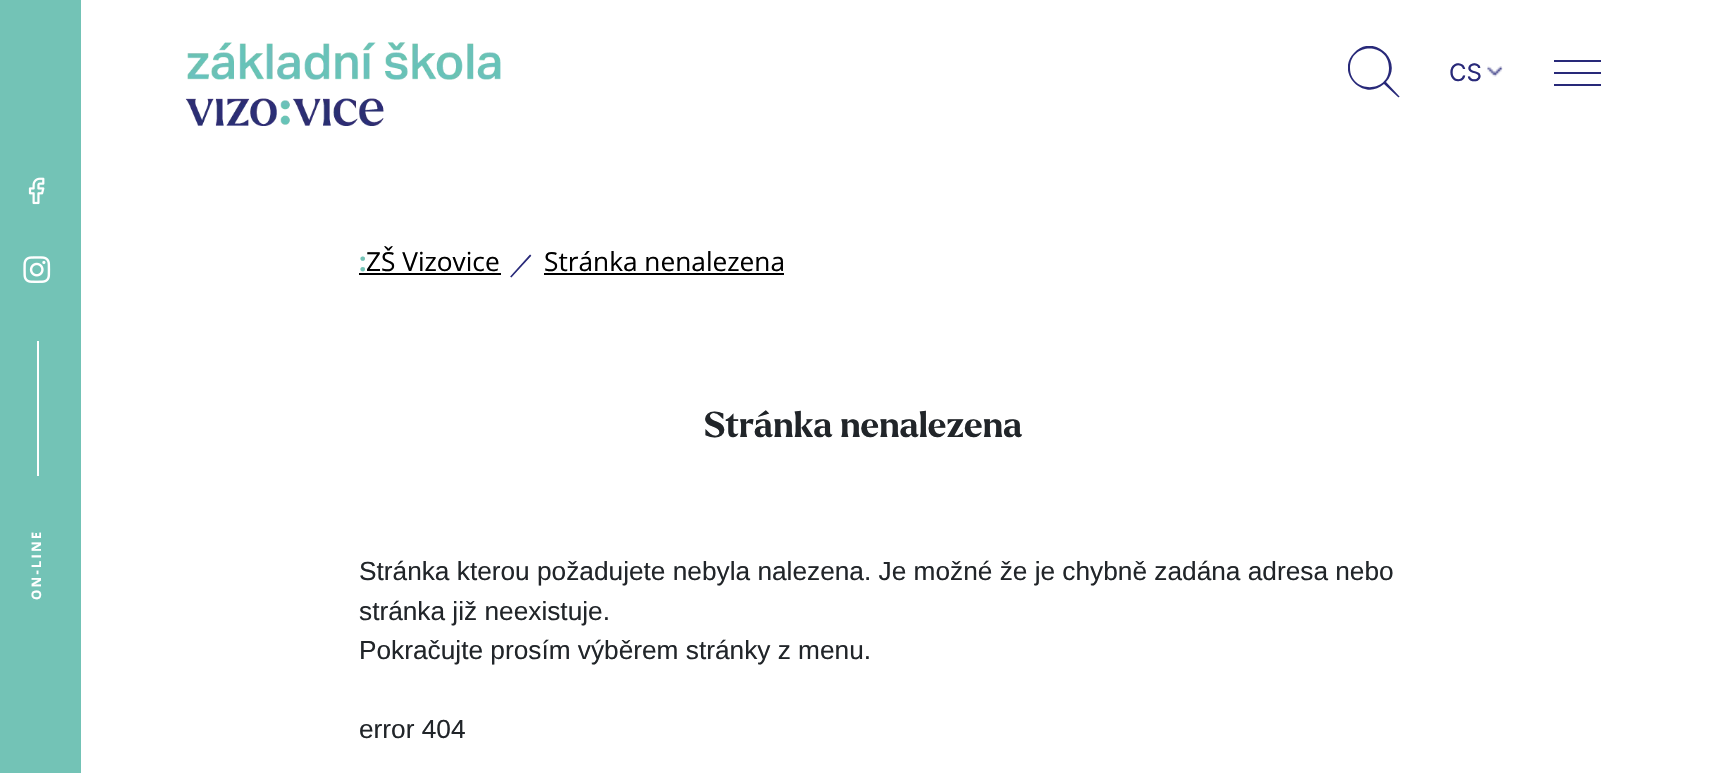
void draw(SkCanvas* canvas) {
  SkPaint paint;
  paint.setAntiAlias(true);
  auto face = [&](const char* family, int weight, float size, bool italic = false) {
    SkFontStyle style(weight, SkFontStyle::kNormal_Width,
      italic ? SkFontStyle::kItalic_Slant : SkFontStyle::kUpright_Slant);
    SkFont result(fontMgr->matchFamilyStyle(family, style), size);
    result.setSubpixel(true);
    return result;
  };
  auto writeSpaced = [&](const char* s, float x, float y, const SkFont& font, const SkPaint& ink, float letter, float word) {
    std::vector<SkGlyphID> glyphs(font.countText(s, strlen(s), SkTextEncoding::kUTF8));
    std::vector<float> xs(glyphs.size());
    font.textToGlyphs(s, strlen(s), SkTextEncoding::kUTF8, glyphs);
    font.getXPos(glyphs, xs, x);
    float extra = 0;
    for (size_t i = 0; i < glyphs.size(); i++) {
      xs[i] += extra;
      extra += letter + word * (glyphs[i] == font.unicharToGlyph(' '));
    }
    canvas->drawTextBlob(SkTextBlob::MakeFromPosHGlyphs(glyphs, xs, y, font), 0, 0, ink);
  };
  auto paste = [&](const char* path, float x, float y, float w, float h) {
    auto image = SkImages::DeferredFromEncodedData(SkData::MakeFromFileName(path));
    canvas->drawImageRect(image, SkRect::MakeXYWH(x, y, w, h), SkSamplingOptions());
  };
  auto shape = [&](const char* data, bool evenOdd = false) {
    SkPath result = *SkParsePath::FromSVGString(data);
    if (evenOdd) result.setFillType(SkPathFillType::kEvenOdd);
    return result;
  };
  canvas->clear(0xffffffff);
  paste("img/1.png", 185, 42, 316, 84);
  canvas->save();
  canvas->clipRect(SkRect::MakeXYWH(1348, 46, 52, 52));
  paint.setColor(0xff282979);
  canvas->drawPath(shape("M1399 96L1386 82C1405 61 1373 32 1354 53C1335 73 1364 102 1384 84L1398 97C1399 98 1400 96 1399 96ZM1350 68C1350 42 1389 42 1389 68C1389 94 1350 93 1350 68Z"), paint);
  canvas->restore();
  paste("img/2.png", 1487, 66, 16, 11);
  {
    const struct { float x, y, w, h; SkColor color; } items[] = {
      {1554, 72, 47, 2, 0xff282979},
      {1554, 60, 47, 2, 0xff282979},
      {1554, 84, 47, 2, 0xff282979},
      {359, 273, 142, 2, 0xff000000},
      {544, 273, 240, 2, 0xff000000},
      {0, 0, 81, 773, 0xff73c3b6},
    };
    for (auto [x, y, w, h, color] : items) {
      paint.setColor(color);
      canvas->drawRect(SkRect::MakeXYWH(x, y, w, h), paint);
    }
  }
  paste("img/3.png", 28, 177, 17, 28);
  paste("img/4.png", 23, 256, 28, 27);
  paint.setColor(0xffffffff);
  canvas->drawRect(SkRect::MakeXYWH(37, 341, 2, 135), paint);
  auto f0 = face("Inter", 400, 24);
  paint.setColor(0xff282979);
  canvas->drawString("CS", 1449, 81, f0, paint);
  auto f1 = face("Open Sans", 700, 26.25f);
  paint.setColor(0xff73c3b6);
  canvas->drawString(":", 359, 271, f1, paint);
  auto f2 = face("Open Sans", 400, 26.25f);
  paint.setColor(0xff000000);
  canvas->drawString("ZŠ Vizovice", 366, 271, f2, paint);
  auto f3 = face("WenQuanYi Zen Hei", 500, 26.25f);
  paint.setColor(0xff282979);
  canvas->drawString("／", 509, 273, f3, paint);
  paint.setColor(0xff000000);
  canvas->drawString("Stránka nenalezena", 544, 271, f2, paint);
  auto f4 = face("Open Sans", 700, 13);
  paint.setColor(0xffffffff);
  canvas->save();
  canvas->rotate(-90, 41, 600);
  writeSpaced("ON-LINE", 41, 600, f4, paint, 2.25f, 0);
  canvas->restore();
  auto f5 = face("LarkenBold", 700, 35);
  paint.setColor(0xff212529);
  canvas->drawString("Stránka nenalezena", 704, 437, f5, paint);
  auto f6 = face("Liberation Sans", 400, 26.25f);
  {
    const struct { const char* s; float x, y; } items[] = {
      {"Stránka kterou požadujete nebyla nalezena. Je možné že je chybně zadána adresa nebo", 359, 580},
      {"stránka již neexistuje.", 359, 620},
      {"Pokračujte prosím výběrem stránky z menu.", 359, 659},
      {"error 404", 359, 738},
    };
    for (auto [s, x, y] : items) {
      canvas->drawString(s, x, y, f6, paint);
    }
  }
}
